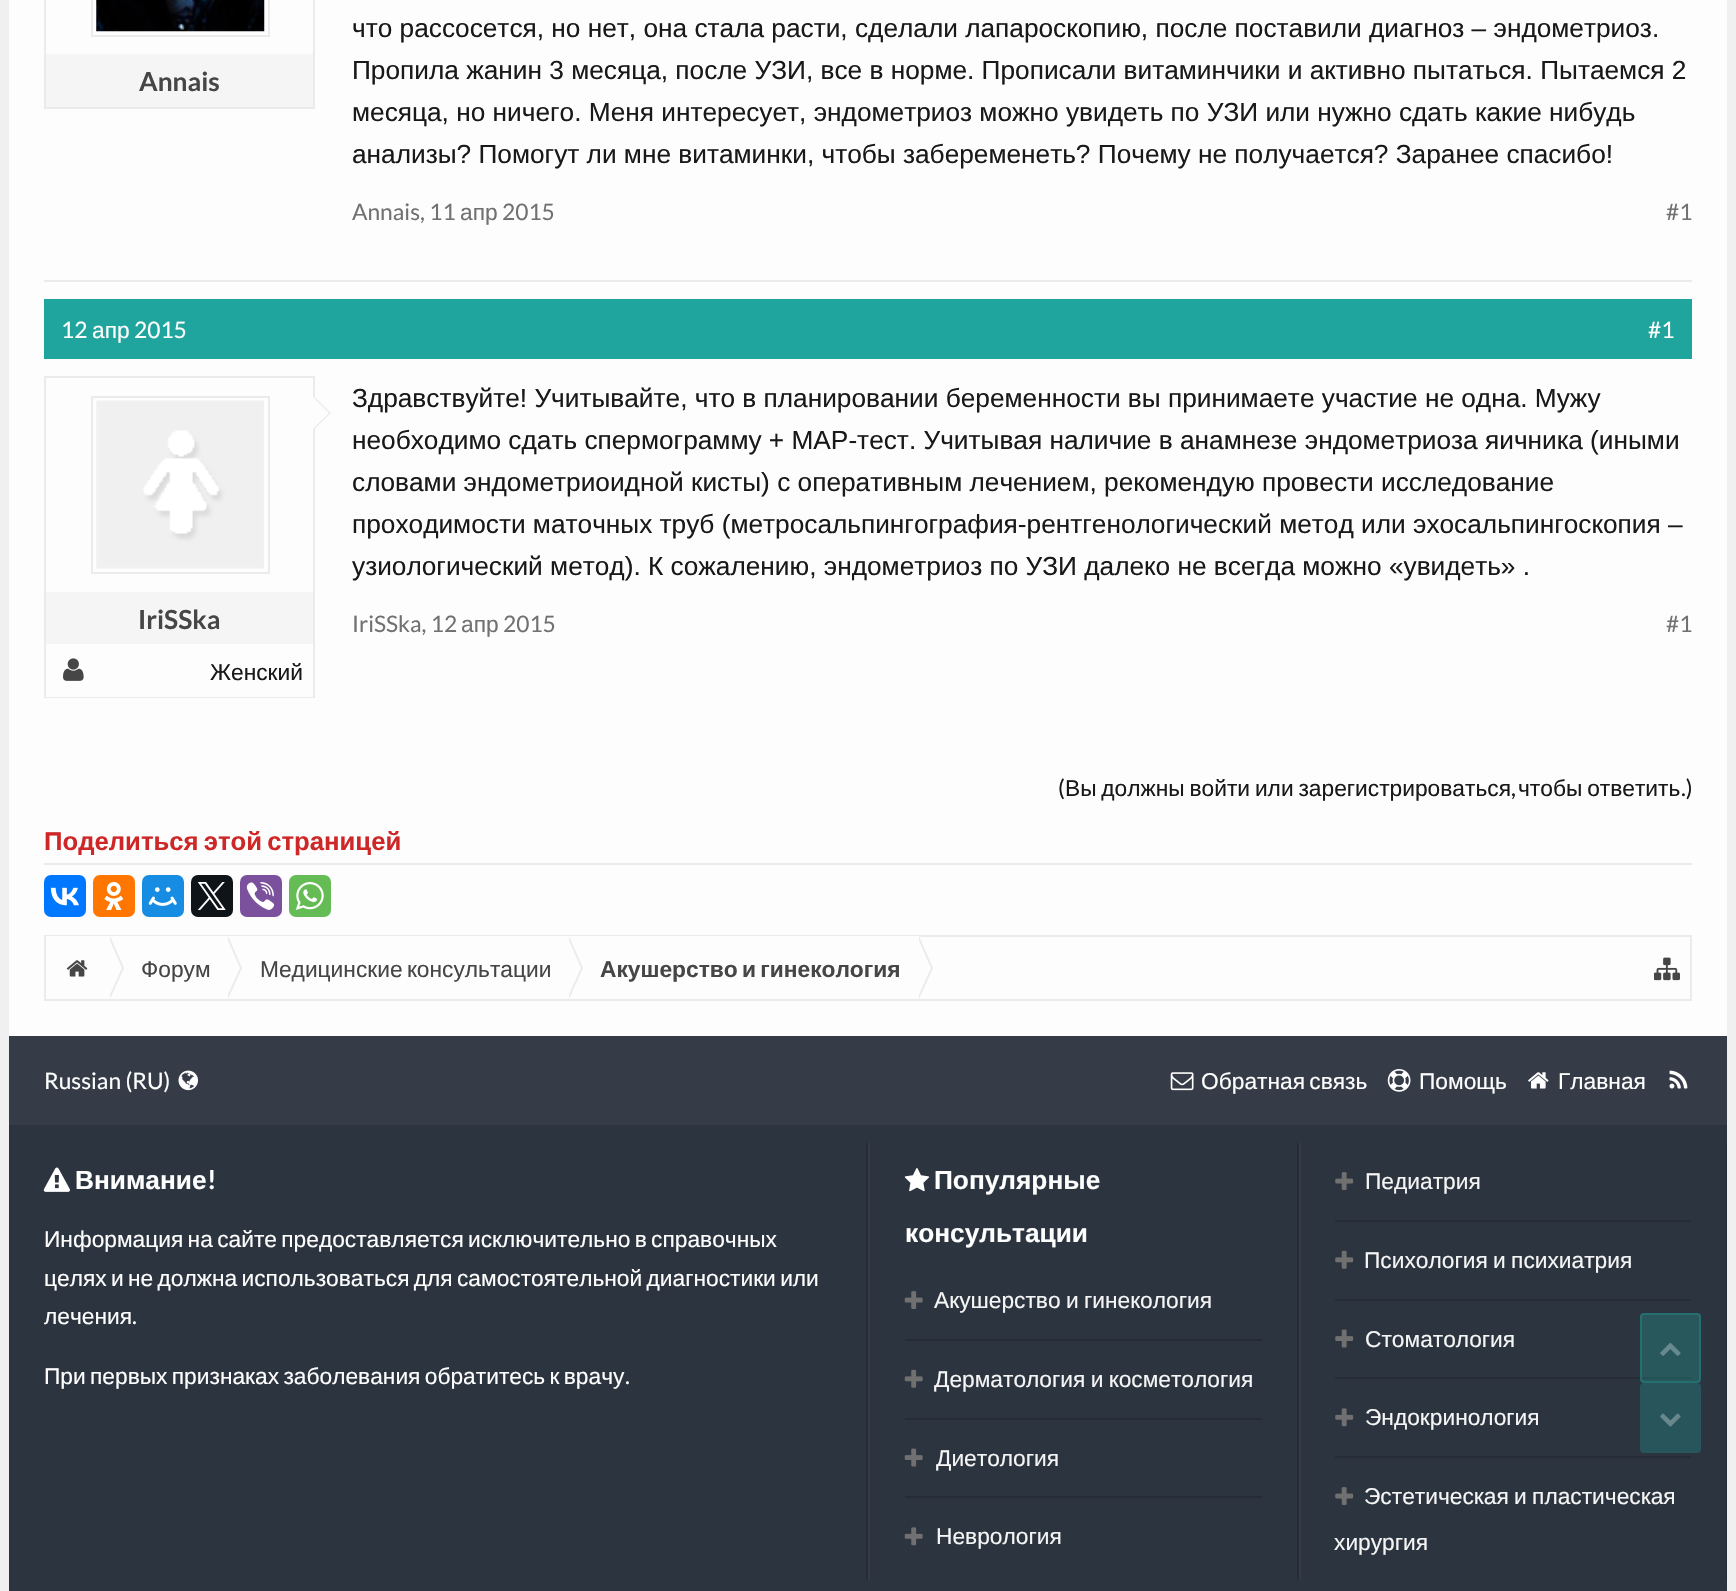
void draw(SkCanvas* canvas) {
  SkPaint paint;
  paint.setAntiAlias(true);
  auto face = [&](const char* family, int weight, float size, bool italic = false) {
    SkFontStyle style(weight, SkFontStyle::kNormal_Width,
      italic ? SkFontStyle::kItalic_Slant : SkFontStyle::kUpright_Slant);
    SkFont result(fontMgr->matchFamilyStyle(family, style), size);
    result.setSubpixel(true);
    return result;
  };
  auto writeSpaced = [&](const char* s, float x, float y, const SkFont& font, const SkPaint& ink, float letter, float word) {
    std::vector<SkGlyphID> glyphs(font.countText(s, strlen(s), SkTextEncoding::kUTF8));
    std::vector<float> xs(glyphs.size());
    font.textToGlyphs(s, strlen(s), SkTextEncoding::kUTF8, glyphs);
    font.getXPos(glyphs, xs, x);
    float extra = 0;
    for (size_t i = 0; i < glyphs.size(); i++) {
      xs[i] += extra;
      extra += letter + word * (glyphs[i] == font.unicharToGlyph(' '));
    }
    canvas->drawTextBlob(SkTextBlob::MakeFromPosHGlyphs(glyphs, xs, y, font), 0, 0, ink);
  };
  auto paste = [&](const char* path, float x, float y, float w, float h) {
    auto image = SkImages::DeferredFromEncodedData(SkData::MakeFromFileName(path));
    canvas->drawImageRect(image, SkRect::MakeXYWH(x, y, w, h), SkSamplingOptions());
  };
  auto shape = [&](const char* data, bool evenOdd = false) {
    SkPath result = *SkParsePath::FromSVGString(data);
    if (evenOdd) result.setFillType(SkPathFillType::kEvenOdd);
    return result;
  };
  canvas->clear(0xfff0f0f0);
  paint.setColor(0xfffdfdfd);
  canvas->drawRect(SkRect::MakeXYWH(9, 0, 1718, 1036), paint);
  paint.setStroke(true);
  paint.setStrokeWidth(2);
  paint.setColor(0xffebebeb);
  canvas->drawRect(SkRect::MakeXYWH(45, -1, 269, 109), paint);
  canvas->drawRect(SkRect::MakeXYWH(92, -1, 177, 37), paint);
  paste("img/1.png", 96, 0, 169, 32);
  paint.setStroke(false);
  {
    const struct { float x, y, w, h; SkColor color; } items[] = {
      {46, 54, 267, 53, 0xfff5f5f5},
      {44, 280, 1648, 2, 0xffebebeb},
      {44, 299, 1648, 60, 0xff1fa49e},
    };
    for (auto [x, y, w, h, color] : items) {
      paint.setColor(color);
      canvas->drawRect(SkRect::MakeXYWH(x, y, w, h), paint);
    }
  }
  paint.setStroke(true);
  paint.setColor(0xffebebeb);
  canvas->drawRect(SkRect::MakeXYWH(45, 377, 269, 320), paint);
  canvas->drawRect(SkRect::MakeXYWH(92, 397, 177, 176), paint);
  paste("img/2.png", 96, 400, 168, 169);
  paint.setStroke(false);
  canvas->drawPath(shape("M313 430.5V395.5L331 413Z"), paint);
  paint.setColor(0xfffdfdfd);
  canvas->drawPath(shape("M311.5 430.5V395.5L329 413Z"), paint);
  paint.setColor(0xfff5f5f5);
  canvas->drawRect(SkRect::MakeXYWH(46, 592, 267, 52), paint);
  paint.setColor(0xfffdfdfd);
  canvas->drawRect(SkRect::MakeXYWH(46, 696, 267, 1), paint);
  paste("img/3.png", 63, 658, 21, 23);
  paint.setColor(0xffebebeb);
  canvas->drawRect(SkRect::MakeXYWH(44, 863, 1648, 2), paint);
  paint.setColor(0xff0077ff);
  canvas->drawRoundRect(SkRect::MakeXYWH(44, 875, 42, 42), 7, 7, paint);
  paste("img/4.png", 50, 887, 29, 19);
  paint.setColor(0xffff7700);
  canvas->drawRoundRect(SkRect::MakeXYWH(93, 875, 42, 42), 7, 7, paint);
  paste("img/5.png", 104, 882, 20, 28);
  paint.setColor(0xff168de2);
  canvas->drawRoundRect(SkRect::MakeXYWH(142, 875, 42, 42), 7, 7, paint);
  paste("img/6.png", 148, 887, 29, 19);
  paint.setColor(0xff0f1419);
  canvas->drawRoundRect(SkRect::MakeXYWH(191, 875, 42, 42), 7, 7, paint);
  paste("img/7.png", 197, 882, 29, 28);
  paint.setColor(0xff7b519d);
  canvas->drawRoundRect(SkRect::MakeXYWH(240, 875, 42, 42), 7, 7, paint);
  paste("img/8.png", 246, 882, 29, 28);
  paint.setColor(0xff65bc54);
  canvas->drawRoundRect(SkRect::MakeXYWH(289, 875, 42, 42), 7, 7, paint);
  paste("img/9.png", 295, 882, 29, 28);
  paint.setStroke(true);
  paint.setColor(0xffebebeb);
  canvas->drawRect(SkRect::MakeXYWH(45, 936, 1646, 64), paint);
  paint.setStroke(false);
  paint.setColor(0xfffdfdfd);
  canvas->drawRect(SkRect::MakeXYWH(46, 936, 873, 1), paint);
  paste("img/10.png", 66, 960, 22, 17);
  paint.setColor(0xffebebeb);
  canvas->drawPath(shape("M110 999V936L124 968Z"), paint);
  paint.setColor(0xfffdfdfd);
  canvas->drawPath(shape("M108 999V936L122 968Z"), paint);
  paint.setColor(0xffebebeb);
  canvas->drawPath(shape("M228 999V936L242 968Z"), paint);
  paint.setColor(0xfffdfdfd);
  canvas->drawPath(shape("M226 999V936L240 968Z"), paint);
  paint.setColor(0xffebebeb);
  canvas->drawPath(shape("M569 999V936L583 968Z"), paint);
  paint.setColor(0xfffdfdfd);
  canvas->drawPath(shape("M567 999V936L581 968Z"), paint);
  paint.setColor(0xffebebeb);
  canvas->drawPath(shape("M919 999V936L933 968Z"), paint);
  paint.setColor(0xfffdfdfd);
  canvas->drawPath(shape("M917 999V936L931 968Z"), paint);
  paste("img/11.png", 1654, 957, 26, 24);
  paint.setColor(0xff2c343f);
  canvas->drawRect(SkRect::MakeXYWH(9, 1125, 1718, 466), paint);
  paint.setColor(0xff252c36);
  canvas->drawRect(SkRect::MakeXYWH(1335, 1377, 356, 2), paint);
  paint.setColor(0x4d1fa49e);
  canvas->drawRoundRect(SkRect::MakeXYWH(1640, 1313, 61, 70), 4, 4, paint);
  paint.setStroke(true);
  canvas->drawRoundRect(SkRect::MakeXYWH(1641, 1314, 59, 68), 3, 3, paint);
  paste("img/12.png", 1660, 1343, 21, 13);
  paint.setStroke(false);
  paint.setColor(0xff28555b);
  canvas->drawRoundRect(SkRect::MakeXYWH(1641, 1384, 59, 68), 3, 3, paint);
  paint.setStroke(true);
  canvas->drawRoundRect(SkRect::MakeXYWH(1641, 1384, 59, 68), 3, 3, paint);
  paste("img/13.png", 1660, 1413, 21, 14);
  paint.setStroke(false);
  paint.setColor(0xff353c47);
  canvas->drawRect(SkRect::MakeXYWH(9, 1036, 1718, 89), paint);
  paste("img/14.png", 178, 1070, 20, 21);
  paste("img/15.png", 1170, 1072, 24, 19);
  paste("img/16.png", 1387, 1069, 24, 23);
  paste("img/17.png", 1528, 1072, 21, 17);
  paste("img/18.png", 1669, 1070, 19, 19);
  paint.setColor(0xff252c36);
  canvas->drawRect(SkRect::MakeXYWH(866, 1143, 2, 437), paint);
  paste("img/19.png", 43, 1167, 27, 25);
  canvas->drawRect(SkRect::MakeXYWH(1297, 1143, 2, 437), paint);
  paint.setColor(0xff343b44);
  canvas->drawRect(SkRect::MakeXYWH(868, 1143, 2, 437), paint);
  paste("img/20.png", 904, 1168, 26, 24);
  paint.setColor(0xff252c36);
  canvas->drawRect(SkRect::MakeXYWH(905, 1339, 357, 2), paint);
  paste("img/21.png", 904, 1291, 19, 18);
  canvas->drawRect(SkRect::MakeXYWH(905, 1418, 357, 2), paint);
  paste("img/22.png", 904, 1369, 19, 19);
  canvas->drawRect(SkRect::MakeXYWH(905, 1496, 357, 2), paint);
  paste("img/23.png", 904, 1448, 19, 19);
  paste("img/24.png", 904, 1527, 19, 19);
  {
    const struct { float x, y, w, h; SkColor color; } items[] = {
      {1726, 1143, 1, 437, 0xff252c36},
      {1299, 1143, 2, 437, 0xff343b44},
      {1335, 1220, 356, 2, 0xff252c36},
    };
    for (auto [x, y, w, h, color] : items) {
      paint.setColor(color);
      canvas->drawRect(SkRect::MakeXYWH(x, y, w, h), paint);
    }
  }
  paste("img/25.png", 1335, 1172, 19, 18);
  canvas->drawRect(SkRect::MakeXYWH(1335, 1299, 356, 2), paint);
  paste("img/26.png", 1335, 1250, 19, 19);
  paste("img/27.png", 1335, 1329, 19, 19);
  canvas->drawRect(SkRect::MakeXYWH(1335, 1456, 356, 2), paint);
  paste("img/28.png", 1335, 1408, 19, 19);
  paste("img/25.png", 1335, 1487, 19, 18);
  auto f0 = face("Lato", 700, 26.25f);
  paint.setColor(0xff464646);
  canvas->drawString("Annais", 139, 91, f0, paint);
  auto f1 = face("Liberation Sans", 400, 26.25f);
  paint.setColor(0xff191919);
  {
    const struct { const char* s; float x, y; } items[] = {
      {"что рассосется, но нет, она стала расти, сделали лапароскопию, после поставили диагноз – эндометриоз.", 352, 37},
      {"Пропила жанин 3 месяца, после УЗИ, все в норме. Прописали витаминчики и активно пытаться. Пытаемся 2", 352, 79},
      {"месяца, но ничего. Меня интересует, эндометриоз можно увидеть по УЗИ или нужно сдать какие нибудь", 352, 121},
      {"анализы? Помогут ли мне витаминки, чтобы забеременеть? Почему не получается? Заранее спасибо!", 352, 163},
    };
    for (auto [s, x, y] : items) {
      canvas->drawString(s, x, y, f1, paint);
    }
  }
  auto f2 = face("Lato", 400, 22.75f);
  paint.setColor(0xff717171);
  canvas->drawString("Annais, 11", 352, 220, f2, paint);
  auto f3 = face("Liberation Sans", 400, 22.75f);
  canvas->drawString("апр", 460, 220, f3, paint);
  canvas->drawString("2015", 502, 220, f2, paint);
  canvas->drawString("#1", 1666, 220, f2, paint);
  paint.setColor(0xfffefefe);
  canvas->drawString("12", 61, 338, f2, paint);
  canvas->drawString("апр", 92, 338, f3, paint);
  canvas->drawString("2015", 134, 338, f2, paint);
  canvas->drawString("#1", 1648, 338, f2, paint);
  paint.setColor(0xff191919);
  {
    const struct { const char* s; float x, y; } items[] = {
      {"Здравствуйте! Учитывайте, что в планировании беременности вы принимаете участие не одна. Мужу", 352, 407},
      {"необходимо сдать спермограмму + МАР-тест. Учитывая наличие в анамнезе эндометриоза яичника (иными", 352, 449},
      {"словами эндометриоидной кисты) с оперативным лечением, рекомендую провести исследование", 352, 491},
      {"проходимости маточных труб (метросальпингография-рентгенологический метод или эхосальпингоскопия –", 352, 533},
      {"узиологический метод). К сожалению, эндометриоз по УЗИ далеко не всегда можно «увидеть» .", 352, 575},
    };
    for (auto [s, x, y] : items) {
      canvas->drawString(s, x, y, f1, paint);
    }
  }
  paint.setColor(0xff717171);
  canvas->drawString("IriSSka, 12", 352, 632, f2, paint);
  canvas->drawString("апр", 461, 632, f3, paint);
  canvas->drawString("2015", 503, 632, f2, paint);
  canvas->drawString("#1", 1666, 632, f2, paint);
  paint.setColor(0xff464646);
  canvas->drawString("IriSSka", 138, 629, f0, paint);
  paint.setColor(0xff191919);
  canvas->drawString("Женский", 210, 680, f3, paint);
  canvas->drawString("(", 1058, 796, f2, paint);
  writeSpaced("Вы должны войти или зарегистрироваться", 1065, 796, f3, paint, 0, -1.5f);
  canvas->drawString(",", 1511, 796, f2, paint);
  writeSpaced("чтобы ответить", 1518, 796, f3, paint, 0, -1.5f);
  canvas->drawString(".)", 1681, 796, f2, paint);
  auto f4 = face("Liberation Sans", 700, 25.7f);
  paint.setColor(0xffce2727);
  writeSpaced("Поделиться этой страницей", 44, 850, f4, paint, 0, -2);
  paint.setColor(0xff464646);
  canvas->drawString("Форум", 141, 977, f3, paint);
  writeSpaced("Медицинские консультации", 260, 977, f3, paint, 0, -2);
  auto f5 = face("Liberation Sans", 700, 22.75f);
  writeSpaced("Акушерство и гинекология", 600, 977, f5, paint, 0, -2);
  paint.setColor(0xfffefefe);
  canvas->drawString("Russian (RU)", 44, 1089, f2, paint);
  writeSpaced("Обратная связь", 1201, 1089, f3, paint, 0, -2);
  canvas->drawString("Помощь", 1419, 1089, f3, paint);
  canvas->drawString("Главная", 1558, 1089, f3, paint);
  auto f6 = face("Liberation Sans", 700, 26.25f);
  canvas->drawString("Внимание", 75, 1189, f6, paint);
  canvas->drawString("!", 207, 1189, f0, paint);
  writeSpaced("Информация на сайте предоставляется исключительно в справочных", 44, 1247, f3, paint, 0, -2);
  writeSpaced("целях и не должна использоваться для самостоятельной диагностики или", 44, 1286, f3, paint, 0, -2);
  canvas->drawString("лечения", 44, 1324, f3, paint);
  canvas->drawString(".", 132, 1324, f2, paint);
  writeSpaced("При первых признаках заболевания обратитесь к врачу", 44, 1384, f3, paint, 0, -2);
  canvas->drawString(".", 625, 1384, f2, paint);
  canvas->drawString("Популярные", 934, 1189, f6, paint);
  canvas->drawString("консультации", 905, 1242, f6, paint);
  paint.setColor(0xfff5f5f5);
  writeSpaced("Акушерство и гинекология", 934, 1308, f3, paint, 0, -1);
  writeSpaced("Дерматология и косметология", 934, 1387, f3, paint, 0, -1);
  {
    const struct { const char* s; float x, y; } items[] = {
      {"Диетология", 936, 1466},
      {"Неврология", 936, 1544},
      {"Педиатрия", 1365, 1189},
    };
    for (auto [s, x, y] : items) {
      canvas->drawString(s, x, y, f3, paint);
    }
  }
  writeSpaced("Психология и психиатрия", 1364, 1268, f3, paint, 0, -1);
  canvas->drawString("Стоматология", 1365, 1347, f3, paint);
  canvas->drawString("Эндокринология", 1365, 1425, f3, paint);
  writeSpaced("Эстетическая и пластическая", 1364, 1504, f3, paint, 0, -1);
  canvas->drawString("хирургия", 1334, 1550, f3, paint);
}
